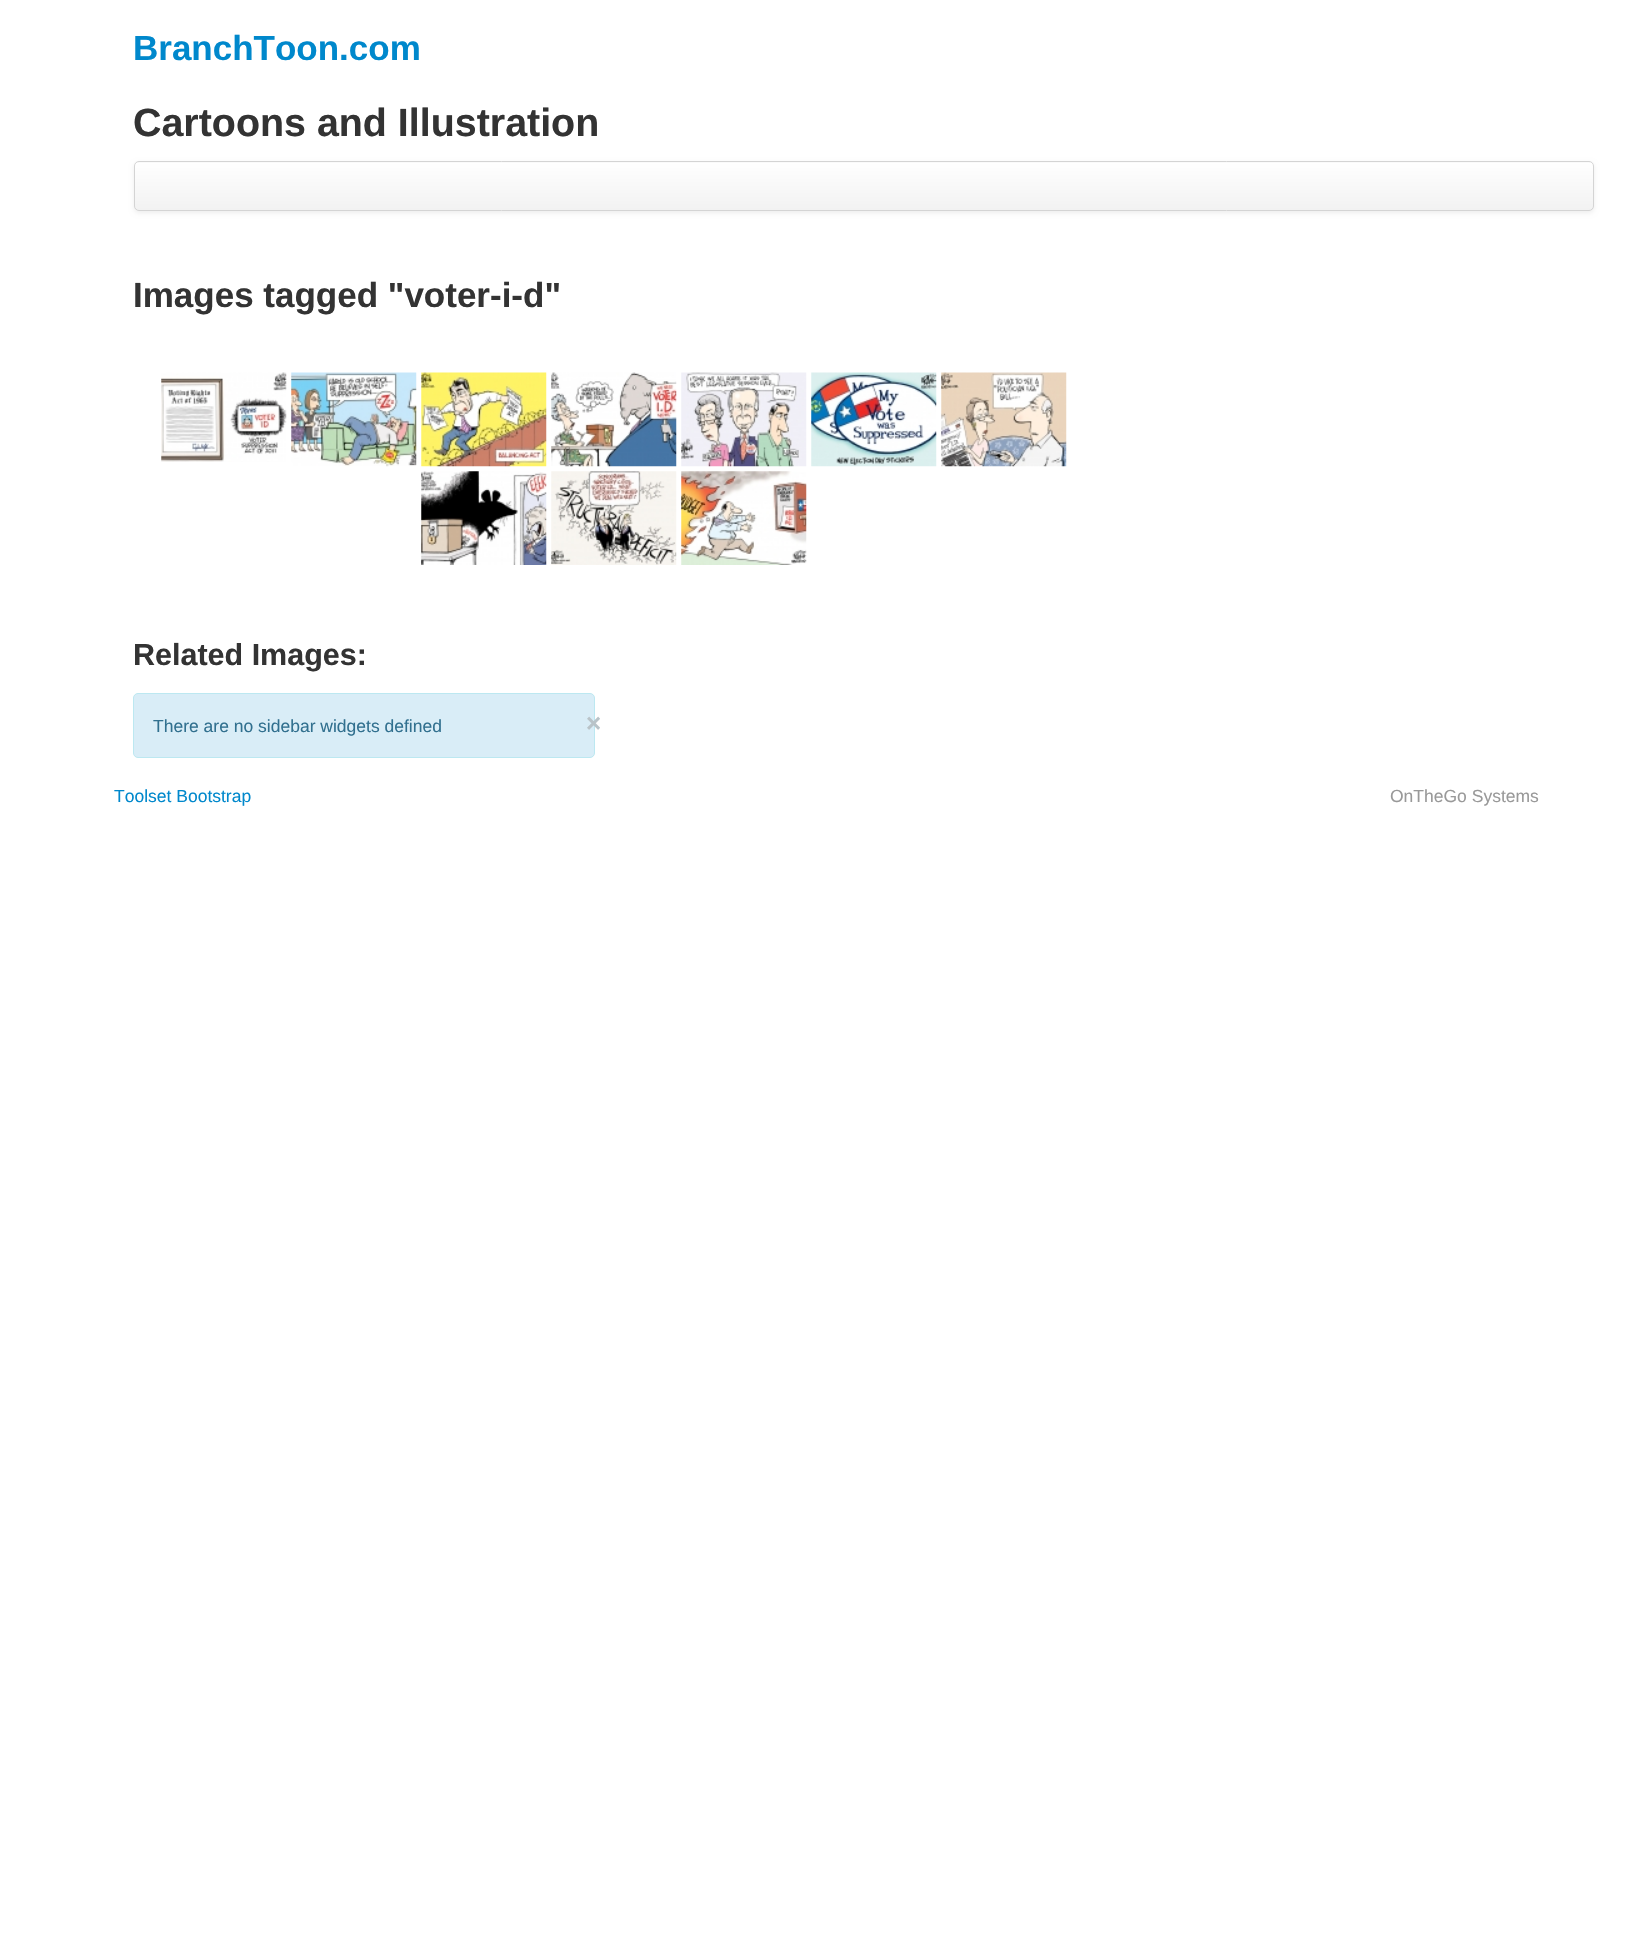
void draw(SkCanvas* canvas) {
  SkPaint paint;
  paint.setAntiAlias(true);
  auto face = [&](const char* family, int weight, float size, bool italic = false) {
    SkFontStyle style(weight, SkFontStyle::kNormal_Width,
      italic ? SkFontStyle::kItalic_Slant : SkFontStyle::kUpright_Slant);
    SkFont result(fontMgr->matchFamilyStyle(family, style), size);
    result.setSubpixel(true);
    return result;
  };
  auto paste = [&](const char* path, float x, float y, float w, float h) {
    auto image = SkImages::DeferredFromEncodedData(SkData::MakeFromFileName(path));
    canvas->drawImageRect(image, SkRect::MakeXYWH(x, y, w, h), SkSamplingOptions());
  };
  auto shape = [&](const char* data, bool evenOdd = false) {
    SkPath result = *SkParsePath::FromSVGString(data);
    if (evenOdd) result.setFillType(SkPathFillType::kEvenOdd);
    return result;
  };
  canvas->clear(0xffffffff);
  paint.setColor(0x12000000);
  paint.setMaskFilter(SkMaskFilter::MakeBlur(kNormal_SkBlurStyle, 2.5f));
  canvas->drawRoundRect(SkRect::MakeXYWH(134, 163, 1460, 50), 5, 5, paint);
  paint.setMaskFilter(nullptr);
  paint.setColor(0xfffafafa);
  canvas->drawRoundRect(SkRect::MakeXYWH(134, 161, 1460, 50), 5, 5, paint);
  canvas->save();
  canvas->clipPath(shape("M139 161H1589C1592 161 1594 163 1594 166V206C1594 209 1592 211 1589 211H139C136 211 134 209 134 206V166C134 163 136 161 139 161Z"), true);
  {
    const SkColor colors[] = {0xffffffff, 0xfff2f2f2};
    const float stops[] = {0, 1};
    const SkPoint ends[] = {{864, 162}, {864, 210}};
    paint.setShader(SkGradientShader::MakeLinear(ends, colors, stops, 2, SkTileMode::kClamp));
    paint.setAlpha(255);
  }
  canvas->drawRect(SkRect::MakeXYWH(134, 163, 1460, 47), paint);
  canvas->restore();
  paint.setStroke(true);
  paint.setStrokeWidth(1);
  paint.setShader(nullptr);
  paint.setColor(0xffd4d4d4);
  canvas->drawRoundRect(SkRect::MakeXYWH(134.5f, 161.5f, 1459, 49), 4.5f, 4.5f, paint);
  paste("img/1.png", 161, 372, 126, 90);
  paste("img/2.png", 291, 372, 126, 95);
  paste("img/3.png", 421, 372, 126, 95);
  paste("img/4.png", 551, 372, 126, 95);
  paste("img/5.png", 681, 372, 126, 95);
  paste("img/6.png", 811, 372, 126, 95);
  paste("img/7.png", 941, 372, 126, 95);
  paste("img/8.png", 421, 471, 126, 94);
  paste("img/9.png", 551, 471, 126, 94);
  paste("img/10.png", 681, 471, 126, 94);
  paint.setStroke(false);
  paint.setColor(0xffd9edf7);
  canvas->drawRoundRect(SkRect::MakeXYWH(133.5f, 693.5f, 461, 64), 4.5f, 4.5f, paint);
  paint.setStroke(true);
  paint.setColor(0xffbce8f1);
  canvas->drawRoundRect(SkRect::MakeXYWH(133.5f, 693.5f, 461, 64), 4.5f, 4.5f, paint);
  auto f0 = face("Liberation Sans", 700, 35);
  paint.setStroke(false);
  paint.setColor(0xff0088cc);
  canvas->drawString("BranchToon.com", 133, 60, f0, paint);
  auto f1 = face("Liberation Sans", 700, 39.4f);
  paint.setColor(0xff333333);
  canvas->drawString("Cartoons and Illustration", 133, 136, f1, paint);
  canvas->drawString("Images tagged \"voter-i-d\"", 133, 307, f0, paint);
  auto f2 = face("Liberation Sans", 700, 30.5f);
  canvas->drawString("Related Images:", 133, 665, f2, paint);
  auto f3 = face("Liberation Sans", 400, 17.5f);
  paint.setColor(0xff31708f);
  canvas->drawString("There are no sidebar widgets defined", 153, 732, f3, paint);
  auto f4 = face("Liberation Sans", 700, 26);
  paint.setColor(0xffb9c3c8);
  canvas->drawString("×", 586, 732, f4, paint);
  paint.setColor(0xff0088cc);
  canvas->drawString("Toolset Bootstrap", 114, 802, f3, paint);
  paint.setColor(0xff999999);
  canvas->drawString("OnTheGo Systems", 1390, 802, f3, paint);
}
